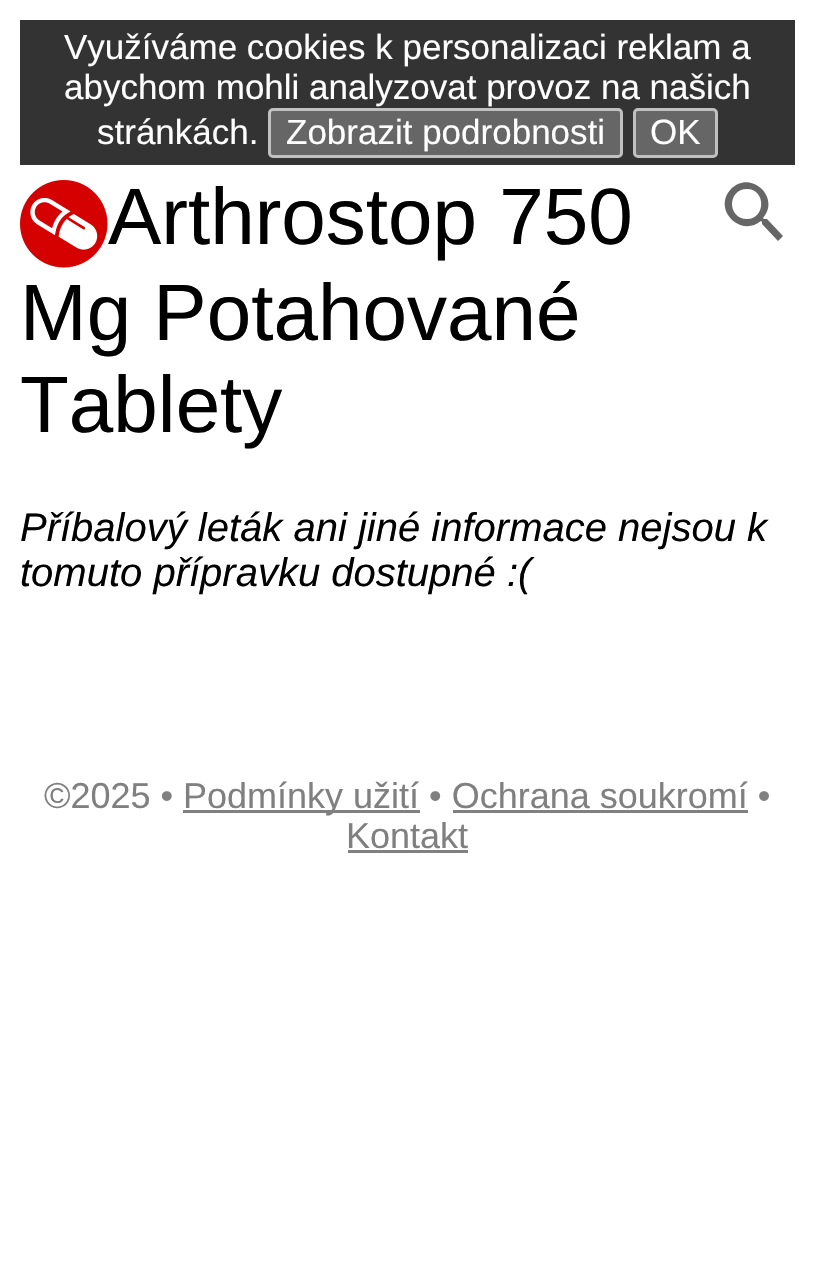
void draw(SkCanvas* canvas) {
  SkPaint paint;
  paint.setAntiAlias(true);
  auto face = [&](const char* family, int weight, float size, bool italic = false) {
    SkFontStyle style(weight, SkFontStyle::kNormal_Width,
      italic ? SkFontStyle::kItalic_Slant : SkFontStyle::kUpright_Slant);
    SkFont result(fontMgr->matchFamilyStyle(family, style), size);
    result.setSubpixel(true);
    return result;
  };
  auto paste = [&](const char* path, float x, float y, float w, float h) {
    auto image = SkImages::DeferredFromEncodedData(SkData::MakeFromFileName(path));
    canvas->drawImageRect(image, SkRect::MakeXYWH(x, y, w, h), SkSamplingOptions());
  };
  auto shape = [&](const char* data, bool evenOdd = false) {
    SkPath result = *SkParsePath::FromSVGString(data);
    if (evenOdd) result.setFillType(SkPathFillType::kEvenOdd);
    return result;
  };
  canvas->clear(0xffffffff);
  paint.setColor(0xff333333);
  canvas->drawRect(SkRect::MakeXYWH(20, 20, 775, 145), paint);
  paint.setColor(0xff666666);
  canvas->drawRoundRect(SkRect::MakeXYWH(269.5f, 109.5f, 352, 47), 3.5f, 3.5f, paint);
  paint.setStroke(true);
  paint.setStrokeWidth(3);
  paint.setColor(0xffc0c0c0);
  canvas->drawRoundRect(SkRect::MakeXYWH(269.5f, 109.5f, 352, 47), 3.5f, 3.5f, paint);
  paint.setStroke(false);
  paint.setColor(0xff666666);
  canvas->drawRoundRect(SkRect::MakeXYWH(634.5f, 109.5f, 82, 47), 3.5f, 3.5f, paint);
  paint.setStroke(true);
  paint.setColor(0xffc0c0c0);
  canvas->drawRoundRect(SkRect::MakeXYWH(634.5f, 109.5f, 82, 47), 3.5f, 3.5f, paint);
  paint.setStroke(false);
  paint.setColor(0xff666666);
  canvas->drawPath(shape("M767 219H764L763 218C781 198 751 169 731 189C712 209 740 238 761 221L762 222V224L778 241L783 236ZM747 219C727 219 727 189 747 189C766 189 766 219 747 219Z"), paint);
  {
    const struct { float x, y, w, h; SkColor color; } items[] = {
      {183, 810, 237, 3, 0xff808080},
      {453, 810, 295, 3, 0xff808080},
      {348, 850, 120, 3, 0xff808080},
    };
    for (auto [x, y, w, h, color] : items) {
      paint.setColor(color);
      canvas->drawRect(SkRect::MakeXYWH(x, y, w, h), paint);
    }
  }
  auto f0 = face("Liberation Sans", 400, 35);
  paint.setColor(0xffffffff);
  {
    const struct { const char* s; float x, y; } items[] = {
      {"Využíváme cookies k personalizaci reklam a", 64, 59},
      {"abychom mohli analyzovat provoz na našich", 64, 99},
      {"stránkách.", 97, 144},
      {"Zobrazit podrobnosti", 286, 144},
      {"OK", 650, 144},
    };
    for (auto [s, x, y] : items) {
      canvas->drawString(s, x, y, f0, paint);
    }
  }
  auto f1 = face("Liberation Sans", 400, 80);
  paint.setColor(0xff000000);
  canvas->drawString("Arthrostop 750", 108, 244, f1, paint);
  paste("img/1.png", 20, 180, 88, 88);
  canvas->drawString("Mg Potahované", 20, 340, f1, paint);
  canvas->drawString("Tablety", 20, 432, f1, paint);
  auto f2 = face("Liberation Sans", 400, 40, true);
  canvas->drawString("Příbalový leták ani jiné informace nejsou k", 20, 541, f2, paint);
  canvas->drawString("tomuto přípravku dostupné :(", 20, 586, f2, paint);
  auto f3 = face("Liberation Sans", 400, 36);
  paint.setColor(0xff808080);
  {
    const struct { const char* s; float x, y; } items[] = {
      {"©2025 •", 44, 808},
      {"Podmínky užití • Ochrana soukromí •", 183, 808},
      {"Kontakt", 346, 848},
    };
    for (auto [s, x, y] : items) {
      canvas->drawString(s, x, y, f3, paint);
    }
  }
}
